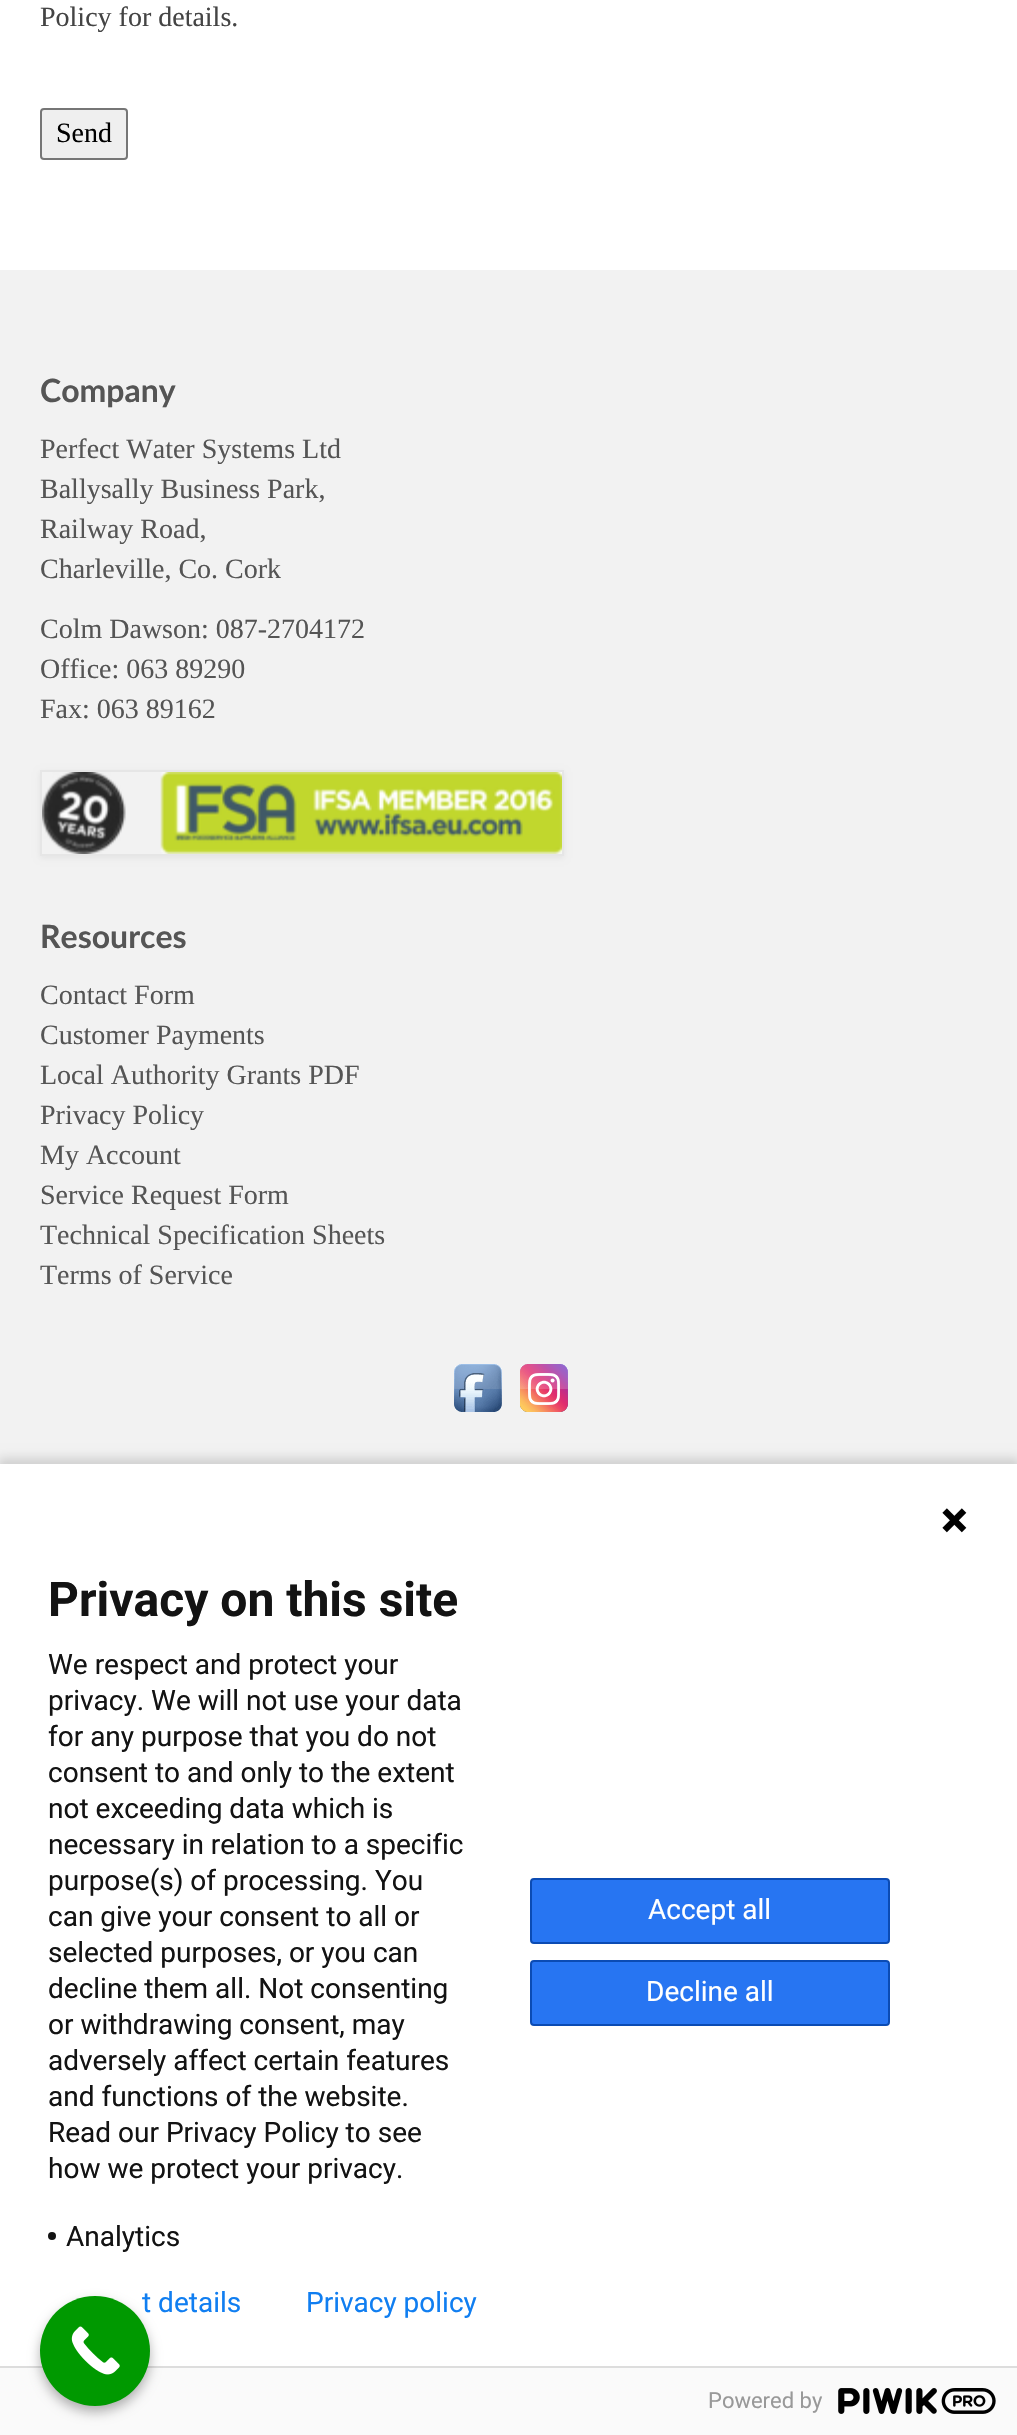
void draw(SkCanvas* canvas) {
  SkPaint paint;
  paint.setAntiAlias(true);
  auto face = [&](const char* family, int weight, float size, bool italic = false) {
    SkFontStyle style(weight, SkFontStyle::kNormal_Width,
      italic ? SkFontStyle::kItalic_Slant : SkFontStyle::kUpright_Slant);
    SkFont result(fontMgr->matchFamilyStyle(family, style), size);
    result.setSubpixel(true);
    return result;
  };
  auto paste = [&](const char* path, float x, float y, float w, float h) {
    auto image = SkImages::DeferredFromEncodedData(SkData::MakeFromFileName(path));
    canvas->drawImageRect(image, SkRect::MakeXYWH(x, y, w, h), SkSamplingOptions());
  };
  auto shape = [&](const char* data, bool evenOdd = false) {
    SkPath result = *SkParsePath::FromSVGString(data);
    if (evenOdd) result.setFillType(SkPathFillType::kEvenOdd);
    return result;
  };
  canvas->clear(0xffffffff);
  paint.setColor(0xffefefef);
  canvas->drawRoundRect(SkRect::MakeXYWH(41, 109, 86, 50), 3, 3, paint);
  paint.setStroke(true);
  paint.setStrokeWidth(2);
  paint.setColor(0xff767676);
  canvas->drawRoundRect(SkRect::MakeXYWH(41, 109, 86, 50), 3, 3, paint);
  paint.setStroke(false);
  paint.setColor(0xfff2f2f2);
  canvas->drawRect(SkRect::MakeXYWH(0, 270, 1017, 1194), paint);
  canvas->save();
  canvas->clipPath(shape("M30 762H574V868H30ZM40 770H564V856H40Z", true), true);
  paint.setColor(0x0f000000);
  paint.setMaskFilter(SkMaskFilter::MakeBlur(kNormal_SkBlurStyle, 3));
  canvas->drawRect(SkRect::MakeXYWH(40, 772, 524, 86), paint);
  paint.setMaskFilter(nullptr);
  canvas->restore();
  paint.setStroke(true);
  paint.setColor(0xffe6e6e6);
  canvas->drawRect(SkRect::MakeXYWH(41, 771, 522, 84), paint);
  paste("img/1.png", 42, 772, 520, 82);
  paste("img/2.png", 454, 1364, 48, 48);
  paste("img/3.png", 520, 1364, 48, 48);
  paint.setStroke(false);
  paint.setColor(0x24000000);
  paint.setMaskFilter(SkMaskFilter::MakeBlur(kNormal_SkBlurStyle, 5));
  canvas->drawRect(SkRect::MakeXYWH(-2, 1458, 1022, 976), paint);
  paint.setMaskFilter(nullptr);
  paint.setColor(0xffffffff);
  canvas->drawRect(SkRect::MakeXYWH(0, 1464, 1017, 902), paint);
  paste("img/4.png", 942, 1508, 25, 25);
  paint.setColor(0xff131313);
  canvas->drawCircle(52, 2236, 4, paint);
  paint.setColor(0xff2775f2);
  canvas->drawRoundRect(SkRect::MakeXYWH(531, 1879, 358, 64), 3, 3, paint);
  paint.setStroke(true);
  paint.setColor(0xff0b4bb3);
  canvas->drawRoundRect(SkRect::MakeXYWH(531, 1879, 358, 64), 3, 3, paint);
  paint.setStroke(false);
  paint.setColor(0xff2775f2);
  canvas->drawRoundRect(SkRect::MakeXYWH(531, 1961, 358, 64), 3, 3, paint);
  paint.setStroke(true);
  paint.setColor(0xff0b4bb3);
  canvas->drawRoundRect(SkRect::MakeXYWH(531, 1961, 358, 64), 3, 3, paint);
  paint.setStroke(false);
  paint.setColor(0xfffafafa);
  canvas->drawRect(SkRect::MakeXYWH(0, 2368, 1017, 67), paint);
  paint.setColor(0xffdddddd);
  canvas->drawRect(SkRect::MakeXYWH(0, 2366, 1017, 2), paint);
  paste("img/5.png", 838, 2388, 158, 26);
  paint.setColor(0x4d000000);
  paint.setMaskFilter(SkMaskFilter::MakeBlur(kNormal_SkBlurStyle, 6));
  canvas->drawRoundRect(SkRect::MakeXYWH(40, 2302, 110, 110), 55, 55, paint);
  paint.setMaskFilter(nullptr);
  auto f0 = face("Liberation Serif", 400, 28);
  paint.setColor(0xff444444);
  canvas->drawString("Policy for details.", 40, 26, f0, paint);
  paint.setColor(0xff000000);
  canvas->drawString("Send", 56, 142, f0, paint);
  auto f1 = face("Lato", 700, 32);
  paint.setColor(0xff555555);
  canvas->drawString("Company", 40, 402, f1, paint);
  {
    const struct { const char* s; float x, y; } items[] = {
      {"Perfect Water Systems Ltd", 40, 458},
      {"Ballysally Business Park,", 40, 498},
      {"Railway Road,", 40, 538},
      {"Charleville, Co. Cork", 40, 578},
      {"Colm Dawson: 087-2704172", 40, 638},
      {"Office: 063 89290", 40, 678},
      {"Fax: 063 89162", 40, 718},
    };
    for (auto [s, x, y] : items) {
      canvas->drawString(s, x, y, f0, paint);
    }
  }
  canvas->drawString("Resources", 40, 948, f1, paint);
  {
    const struct { const char* s; float x, y; } items[] = {
      {"Contact Form", 40, 1004},
      {"Customer Payments", 40, 1044},
      {"Local Authority Grants PDF", 40, 1084},
      {"Privacy Policy", 40, 1124},
      {"My Account", 40, 1164},
      {"Service Request Form", 40, 1204},
      {"Technical Specification Sheets", 40, 1244},
      {"Terms of Service", 40, 1284},
    };
    for (auto [s, x, y] : items) {
      canvas->drawString(s, x, y, f0, paint);
    }
  }
  auto f2 = face("Roboto", 700, 48);
  paint.setColor(0xff131313);
  canvas->drawString("Privacy on this site", 48, 1616, f2, paint);
  auto f3 = face("Roboto", 400, 28);
  {
    const struct { const char* s; float x, y; } items[] = {
      {"We respect and protect your", 48, 1674},
      {"privacy. We will not use your data", 48, 1710},
      {"for any purpose that you do not", 48, 1746},
      {"consent to and only to the extent", 48, 1782},
      {"not exceeding data which is", 48, 1818},
      {"necessary in relation to a specific", 48, 1854},
      {"purpose(s) of processing. You", 48, 1890},
      {"can give your consent to all or", 48, 1926},
      {"selected purposes, or you can", 48, 1962},
      {"decline them all. Not consenting", 48, 1998},
      {"or withdrawing consent, may", 48, 2034},
      {"adversely affect certain features", 48, 2070},
      {"and functions of the website.", 48, 2106},
      {"Read our Privacy Policy to see", 48, 2142},
      {"how we protect your privacy.", 48, 2178},
      {"Analytics", 66, 2246},
    };
    for (auto [s, x, y] : items) {
      canvas->drawString(s, x, y, f3, paint);
    }
  }
  paint.setColor(0xffffffff);
  canvas->drawString("Accept all", 648, 1919, f3, paint);
  canvas->drawString("Decline all", 646, 2001, f3, paint);
  paint.setColor(0xff107ef1);
  canvas->drawString("t details", 142, 2312, f3, paint);
  canvas->drawString("Privacy policy", 306, 2312, f3, paint);
  auto f4 = face("Roboto", 400, 22);
  paint.setColor(0xff999999);
  canvas->drawString("Powered by", 708, 2408, f4, paint);
  paint.setColor(0xff009900);
  canvas->drawCircle(95, 2351, 55, paint);
  paste("img/6.png", 71, 2326, 49, 49);
}
